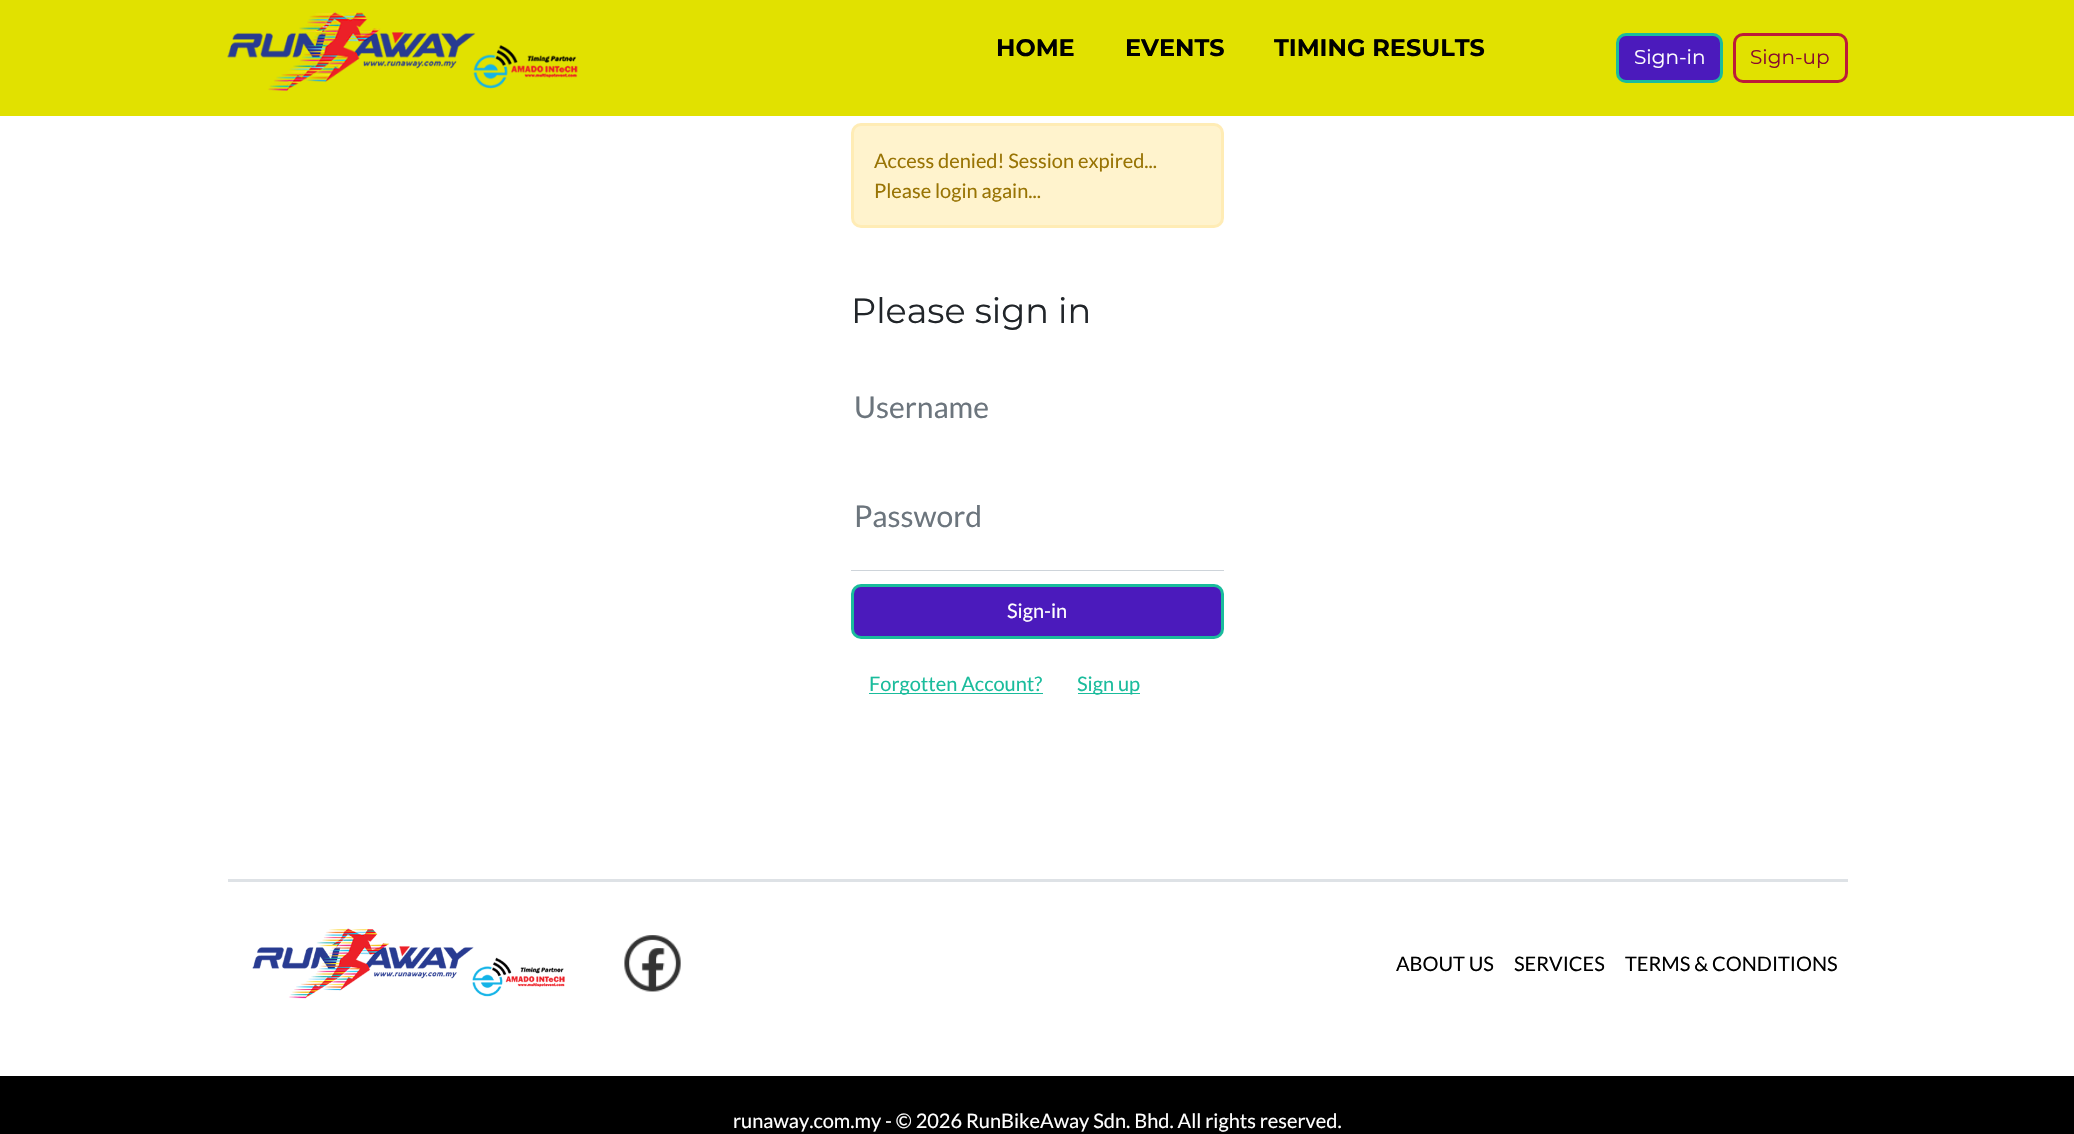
void draw(SkCanvas* canvas) {
  SkPaint paint;
  paint.setAntiAlias(true);
  auto face = [&](const char* family, int weight, float size, bool italic = false) {
    SkFontStyle style(weight, SkFontStyle::kNormal_Width,
      italic ? SkFontStyle::kItalic_Slant : SkFontStyle::kUpright_Slant);
    SkFont result(fontMgr->matchFamilyStyle(family, style), size);
    result.setSubpixel(true);
    return result;
  };
  auto paste = [&](const char* path, float x, float y, float w, float h) {
    auto image = SkImages::DeferredFromEncodedData(SkData::MakeFromFileName(path));
    canvas->drawImageRect(image, SkRect::MakeXYWH(x, y, w, h), SkSamplingOptions());
  };
  canvas->clear(0xffffffff);
  paint.setColor(0xffe1e100);
  canvas->drawRect(SkRect::MakeXYWH(0, 0, 2074, 116), paint);
  paste("img/1.png", 227, 12, 351, 79);
  paint.setColor(0xff4b1abc);
  canvas->drawRoundRect(SkRect::MakeXYWH(1617.5f, 34.5f, 104, 47), 8.5f, 8.5f, paint);
  paint.setStroke(true);
  paint.setStrokeWidth(3);
  paint.setColor(0xff1abc9c);
  canvas->drawRoundRect(SkRect::MakeXYWH(1617.5f, 34.5f, 104, 47), 8.5f, 8.5f, paint);
  paint.setColor(0xffbc1a3a);
  canvas->drawRoundRect(SkRect::MakeXYWH(1734.5f, 34.5f, 112, 47), 8.5f, 8.5f, paint);
  paint.setStroke(false);
  paint.setColor(0xfffff3cd);
  canvas->drawRoundRect(SkRect::MakeXYWH(852.5f, 124.5f, 370, 102), 8.5f, 8.5f, paint);
  paint.setStroke(true);
  paint.setColor(0xffffecb5);
  canvas->drawRoundRect(SkRect::MakeXYWH(852.5f, 124.5f, 370, 102), 8.5f, 8.5f, paint);
  paint.setStroke(false);
  paint.setColor(0xffced4da);
  canvas->drawRect(SkRect::MakeXYWH(851, 570, 373, 1), paint);
  paint.setColor(0xff4b1abc);
  canvas->drawRoundRect(SkRect::MakeXYWH(852.5f, 585.5f, 370, 52), 8.5f, 8.5f, paint);
  paint.setStroke(true);
  paint.setColor(0xff1abc9c);
  canvas->drawRoundRect(SkRect::MakeXYWH(852.5f, 585.5f, 370, 52), 8.5f, 8.5f, paint);
  paint.setStroke(false);
  {
    const struct { float x, y, w, h; SkColor color; } items[] = {
      {869, 693, 174, 1, 0xff1abc9c},
      {1078, 693, 62, 1, 0xff1abc9c},
      {228, 879, 1620, 3, 0xffdee2e6},
    };
    for (auto [x, y, w, h, color] : items) {
      paint.setColor(color);
      canvas->drawRect(SkRect::MakeXYWH(x, y, w, h), paint);
    }
  }
  paste("img/2.png", 252, 928, 313, 71);
  paste("img/3.png", 624, 935, 57, 57);
  paint.setColor(0xff000000);
  canvas->drawRect(SkRect::MakeXYWH(0, 1076, 2074, 58), paint);
  auto f0 = face("Montserrat", 700, 24);
  {
    const struct { const char* s; float x, y; } items[] = {
      {"HOME", 996, 56},
      {"EVENTS", 1125, 56},
      {"TIMING RESULTS", 1274, 56},
    };
    for (auto [s, x, y] : items) {
      canvas->drawString(s, x, y, f0, paint);
    }
  }
  auto f1 = face("Montserrat", 400, 20);
  paint.setColor(0xffffffff);
  canvas->drawString("Sign-in", 1634, 64, f1, paint);
  paint.setColor(0xff880a2f);
  canvas->drawString("Sign-up", 1750, 64, f1, paint);
  auto f2 = face("Lato", 400, 20);
  paint.setColor(0xff997404);
  canvas->drawString("Access denied! Session expired...", 874, 168, f2, paint);
  canvas->drawString("Please login again...", 874, 198, f2, paint);
  auto f3 = face("Montserrat", 400, 35);
  paint.setColor(0xff212529);
  canvas->drawString("Please sign in", 851, 323, f3, paint);
  auto f4 = face("Lato", 400, 30);
  paint.setColor(0xff6c757d);
  canvas->drawString("Username", 854, 418, f4, paint);
  canvas->drawString("Password", 854, 527, f4, paint);
  paint.setColor(0xffffffff);
  canvas->drawString("Sign-in", 1007, 618, f2, paint);
  paint.setColor(0xff1abc9c);
  canvas->drawString("Forgotten Account?", 869, 691, f2, paint);
  canvas->drawString("Sign up", 1077, 691, f2, paint);
  paint.setColor(0xff000000);
  {
    const struct { const char* s; float x, y; } items[] = {
      {"ABOUT US", 1396, 971},
      {"SERVICES", 1514, 971},
      {"TERMS & CONDITIONS", 1625, 971},
    };
    for (auto [s, x, y] : items) {
      canvas->drawString(s, x, y, f2, paint);
    }
  }
  paint.setColor(0xffffffff);
  canvas->drawString("runaway.com.my - © 2026 RunBikeAway Sdn. Bhd. All rights reserved.", 733, 1128, f2, paint);
}
